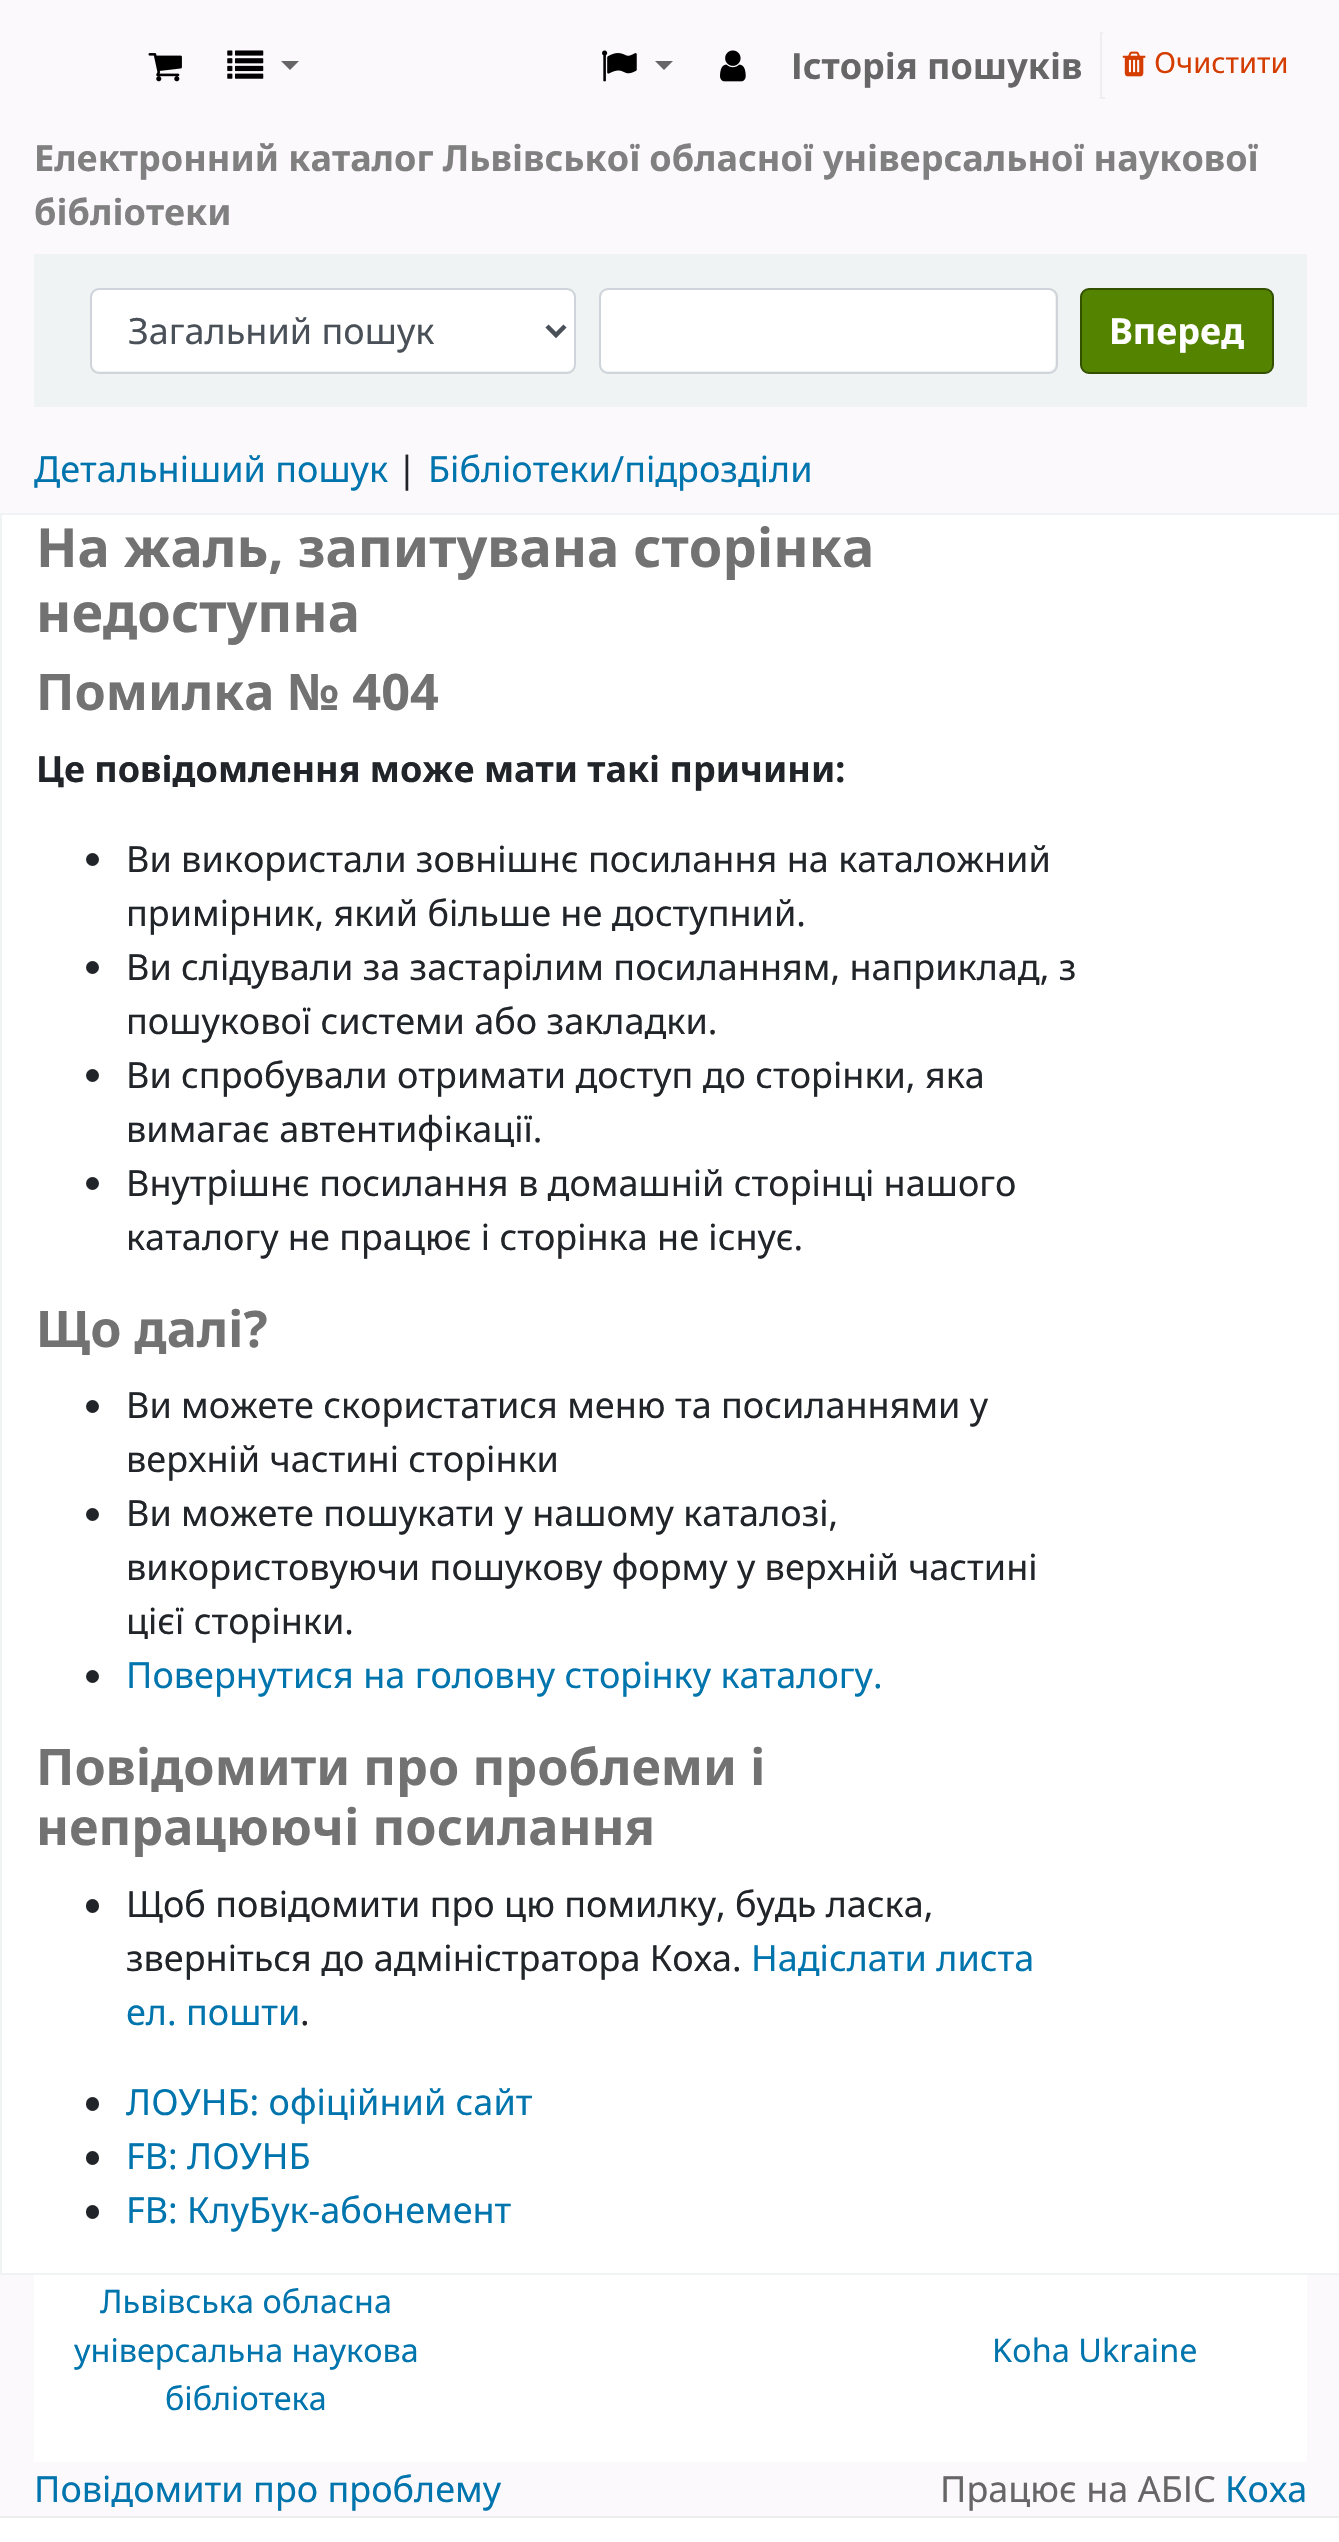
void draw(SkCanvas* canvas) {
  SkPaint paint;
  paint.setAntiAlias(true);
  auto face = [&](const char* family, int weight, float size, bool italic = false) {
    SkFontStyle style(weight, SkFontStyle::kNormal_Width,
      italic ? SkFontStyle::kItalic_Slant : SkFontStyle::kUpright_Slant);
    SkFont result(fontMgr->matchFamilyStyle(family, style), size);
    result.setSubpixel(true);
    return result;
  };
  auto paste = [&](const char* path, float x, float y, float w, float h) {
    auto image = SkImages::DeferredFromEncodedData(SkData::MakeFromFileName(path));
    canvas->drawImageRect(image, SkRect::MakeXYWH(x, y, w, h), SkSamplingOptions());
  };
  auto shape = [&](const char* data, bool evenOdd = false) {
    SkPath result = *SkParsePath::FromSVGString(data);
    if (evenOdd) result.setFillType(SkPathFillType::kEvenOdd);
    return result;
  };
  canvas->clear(0xfffcf9fc);
  paste("img/1.png", 148, 53, 34, 29);
  paste("img/2.png", 227, 50, 37, 29);
  paint.setColor(0xff666666);
  canvas->drawPath(shape("M281 61H299L290 70Z"), paint);
  paste("img/3.png", 602, 50, 35, 32);
  canvas->drawPath(shape("M655 61H673L664 70Z"), paint);
  paste("img/4.png", 720, 50, 26, 32);
  {
    const struct { float x, y, w, h; SkColor color; } items[] = {
      {1100, 32, 5, 2, 0xffeeeeee},
      {1103, 32, 2, 2, 0xfffcf9fc},
      {1100, 97, 5, 2, 0xffeeeeee},
      {1100, 32, 2, 67, 0xffeeeeee},
    };
    for (auto [x, y, w, h, color] : items) {
      paint.setColor(color);
      canvas->drawRect(SkRect::MakeXYWH(x, y, w, h), paint);
    }
  }
  paste("img/5.png", 1122, 51, 24, 26);
  paint.setColor(0xfff0f3f3);
  canvas->drawRect(SkRect::MakeXYWH(34, 254, 1273, 153), paint);
  paint.setColor(0xffffffff);
  canvas->drawRoundRect(SkRect::MakeXYWH(92, 290, 482, 81), 7, 7, paint);
  paint.setStroke(true);
  paint.setStrokeWidth(2);
  paint.setColor(0xffced4da);
  canvas->drawRoundRect(SkRect::MakeXYWH(91, 289, 484, 84), 8, 8, paint);
  paint.setStrokeWidth(4.5f);
  paint.setColor(0xff495057);
  canvas->drawPath(shape("M547 326L556 335L565 326"), paint);
  paint.setStroke(false);
  paint.setColor(0xffffffff);
  canvas->drawRoundRect(SkRect::MakeXYWH(601, 290, 454, 81), 7, 7, paint);
  paint.setStroke(true);
  paint.setStrokeWidth(2);
  paint.setColor(0xffced4da);
  canvas->drawRoundRect(SkRect::MakeXYWH(600, 289, 457, 84), 8, 8, paint);
  paint.setStroke(false);
  paint.setColor(0xff548300);
  canvas->drawRoundRect(SkRect::MakeXYWH(1081, 289, 192, 84), 8, 8, paint);
  paint.setStroke(true);
  paint.setColor(0xff335000);
  canvas->drawRoundRect(SkRect::MakeXYWH(1081, 289, 192, 84), 8, 8, paint);
  paint.setStroke(false);
  paint.setColor(0xffffffff);
  canvas->drawRect(SkRect::MakeXYWH(1, 514, 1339, 1760), paint);
  paint.setStroke(true);
  paint.setColor(0xfff0f3f3);
  canvas->drawRect(SkRect::MakeXYWH(1, 514, 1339, 1760), paint);
  paint.setStroke(false);
  paint.setColor(0xff212529);
  canvas->drawCircle(92.5f, 859.5f, 6.5f, paint);
  canvas->drawCircle(92.5f, 967.5f, 6.5f, paint);
  canvas->drawCircle(92.5f, 1075.5f, 6.5f, paint);
  canvas->drawCircle(92.5f, 1183.5f, 6.5f, paint);
  canvas->drawCircle(92.5f, 1406.5f, 6.5f, paint);
  canvas->drawCircle(92.5f, 1514.5f, 6.5f, paint);
  canvas->drawCircle(92.5f, 1676.5f, 6.5f, paint);
  canvas->drawRoundRect(SkRect::MakeXYWH(86, 1899, 13, 14), 6.5f, 6.5f, paint);
  canvas->drawRoundRect(SkRect::MakeXYWH(86, 2097, 13, 14), 6.5f, 6.5f, paint);
  canvas->drawRoundRect(SkRect::MakeXYWH(86, 2151, 13, 14), 6.5f, 6.5f, paint);
  canvas->drawRoundRect(SkRect::MakeXYWH(86, 2205, 13, 14), 6.5f, 6.5f, paint);
  {
    const struct { float x, y, w, h; SkColor color; } items[] = {
      {34, 2275, 1273, 187, 0xffffffff},
      {0, 2518, 1339, 24, 0xffffffff},
      {0, 2516, 1339, 2, 0xffeeeeee},
    };
    for (auto [x, y, w, h, color] : items) {
      paint.setColor(color);
      canvas->drawRect(SkRect::MakeXYWH(x, y, w, h), paint);
    }
  }
  auto f0 = face("Noto Sans", 700, 36);
  paint.setColor(0xff666666);
  canvas->drawString("Історія пошуків", 791, 79, f0, paint);
  auto f1 = face("Noto Sans", 400, 29);
  paint.setColor(0xffd43c00);
  canvas->drawString("Очистити", 1154, 73, f1, paint);
  paint.setColor(0xff808080);
  canvas->drawString("Електронний каталог Львівської обласної універсальної наукової", 34, 171, f0, paint);
  canvas->drawString("бібліотеки", 34, 225, f0, paint);
  auto f2 = face("Noto Sans", 400, 36);
  paint.setColor(0xff495057);
  canvas->drawString("Загальний пошук", 128, 344, f2, paint);
  paint.setColor(0xffffffff);
  canvas->drawString("Вперед", 1109, 344, f0, paint);
  paint.setColor(0xff0074ad);
  canvas->drawString("Детальніший пошук", 34, 482, f2, paint);
  paint.setColor(0xff212529);
  canvas->drawString("|", 397, 482, f2, paint);
  paint.setColor(0xff0074ad);
  canvas->drawString("Бібліотеки/підрозділи", 428, 482, f2, paint);
  auto f3 = face("Noto Sans", 700, 54);
  paint.setColor(0xff727272);
  canvas->drawString("На жаль, запитувана сторінка", 36, 567, f3, paint);
  canvas->drawString("недоступна", 36, 632, f3, paint);
  auto f4 = face("Noto Sans", 700, 50.4f);
  canvas->drawString("Помилка № 404", 36, 710, f4, paint);
  paint.setColor(0xff212529);
  canvas->drawString("Це повідомлення може мати такі причини:", 36, 782, f0, paint);
  {
    const struct { const char* s; float x, y; } items[] = {
      {"Ви використали зовнішнє посилання на каталожний", 126, 872},
      {"примірник, який більше не доступний.", 126, 926},
      {"Ви слідували за застарілим посиланням, наприклад, з", 126, 980},
      {"пошукової системи або закладки.", 126, 1034},
      {"Ви спробували отримати доступ до сторінки, яка", 126, 1088},
      {"вимагає автентифікації.", 126, 1142},
      {"Внутрішнє посилання в домашній сторінці нашого", 126, 1196},
      {"каталогу не працює і сторінка не існує.", 126, 1250},
    };
    for (auto [s, x, y] : items) {
      canvas->drawString(s, x, y, f2, paint);
    }
  }
  paint.setColor(0xff727272);
  canvas->drawString("Що далі?", 36, 1347, f4, paint);
  paint.setColor(0xff212529);
  {
    const struct { const char* s; float x, y; } items[] = {
      {"Ви можете скористатися меню та посиланнями у", 126, 1418},
      {"верхній частині сторінки", 126, 1472},
      {"Ви можете пошукати у нашому каталозі,", 126, 1526},
      {"використовуючи пошукову форму у верхній частині", 126, 1580},
      {"цієї сторінки.", 126, 1634},
    };
    for (auto [s, x, y] : items) {
      canvas->drawString(s, x, y, f2, paint);
    }
  }
  paint.setColor(0xff0074ad);
  canvas->drawString("Повернутися на головну сторінку каталогу.", 126, 1688, f2, paint);
  paint.setColor(0xff727272);
  canvas->drawString("Повідомити про проблеми і", 36, 1785, f4, paint);
  canvas->drawString("непрацюючі посилання", 36, 1845, f4, paint);
  paint.setColor(0xff212529);
  canvas->drawString("Щоб повідомити про цю помилку, будь ласка,", 126, 1917, f2, paint);
  canvas->drawString("зверніться до адміністратора Коха.", 126, 1971, f2, paint);
  paint.setColor(0xff0074ad);
  canvas->drawString("Надіслати листа", 751, 1971, f2, paint);
  canvas->drawString("ел. пошти", 126, 2025, f2, paint);
  paint.setColor(0xff212529);
  canvas->drawString(".", 300, 2025, f2, paint);
  paint.setColor(0xff0074ad);
  {
    const struct { const char* s; float x, y; } items[] = {
      {"ЛОУНБ: офіційний сайт", 126, 2115},
      {"FB: ЛОУНБ", 126, 2169},
      {"FB: КлуБук-абонемент", 126, 2223},
    };
    for (auto [s, x, y] : items) {
      canvas->drawString(s, x, y, f2, paint);
    }
  }
  auto f5 = face("Noto Sans", 400, 32.4f);
  {
    const struct { const char* s; float x, y; } items[] = {
      {"Львівська обласна", 100, 2313},
      {"універсальна наукова", 74, 2362},
      {"бібліотека", 165, 2410},
      {"Koha Ukraine", 992, 2362},
    };
    for (auto [s, x, y] : items) {
      canvas->drawString(s, x, y, f5, paint);
    }
  }
  canvas->drawString("Повідомити про проблему", 34, 2502, f2, paint);
  paint.setColor(0xff666666);
  canvas->drawString("Працює на АБІС", 940, 2502, f2, paint);
  paint.setColor(0xff0074ad);
  canvas->drawString("Коха", 1225, 2502, f2, paint);
}
